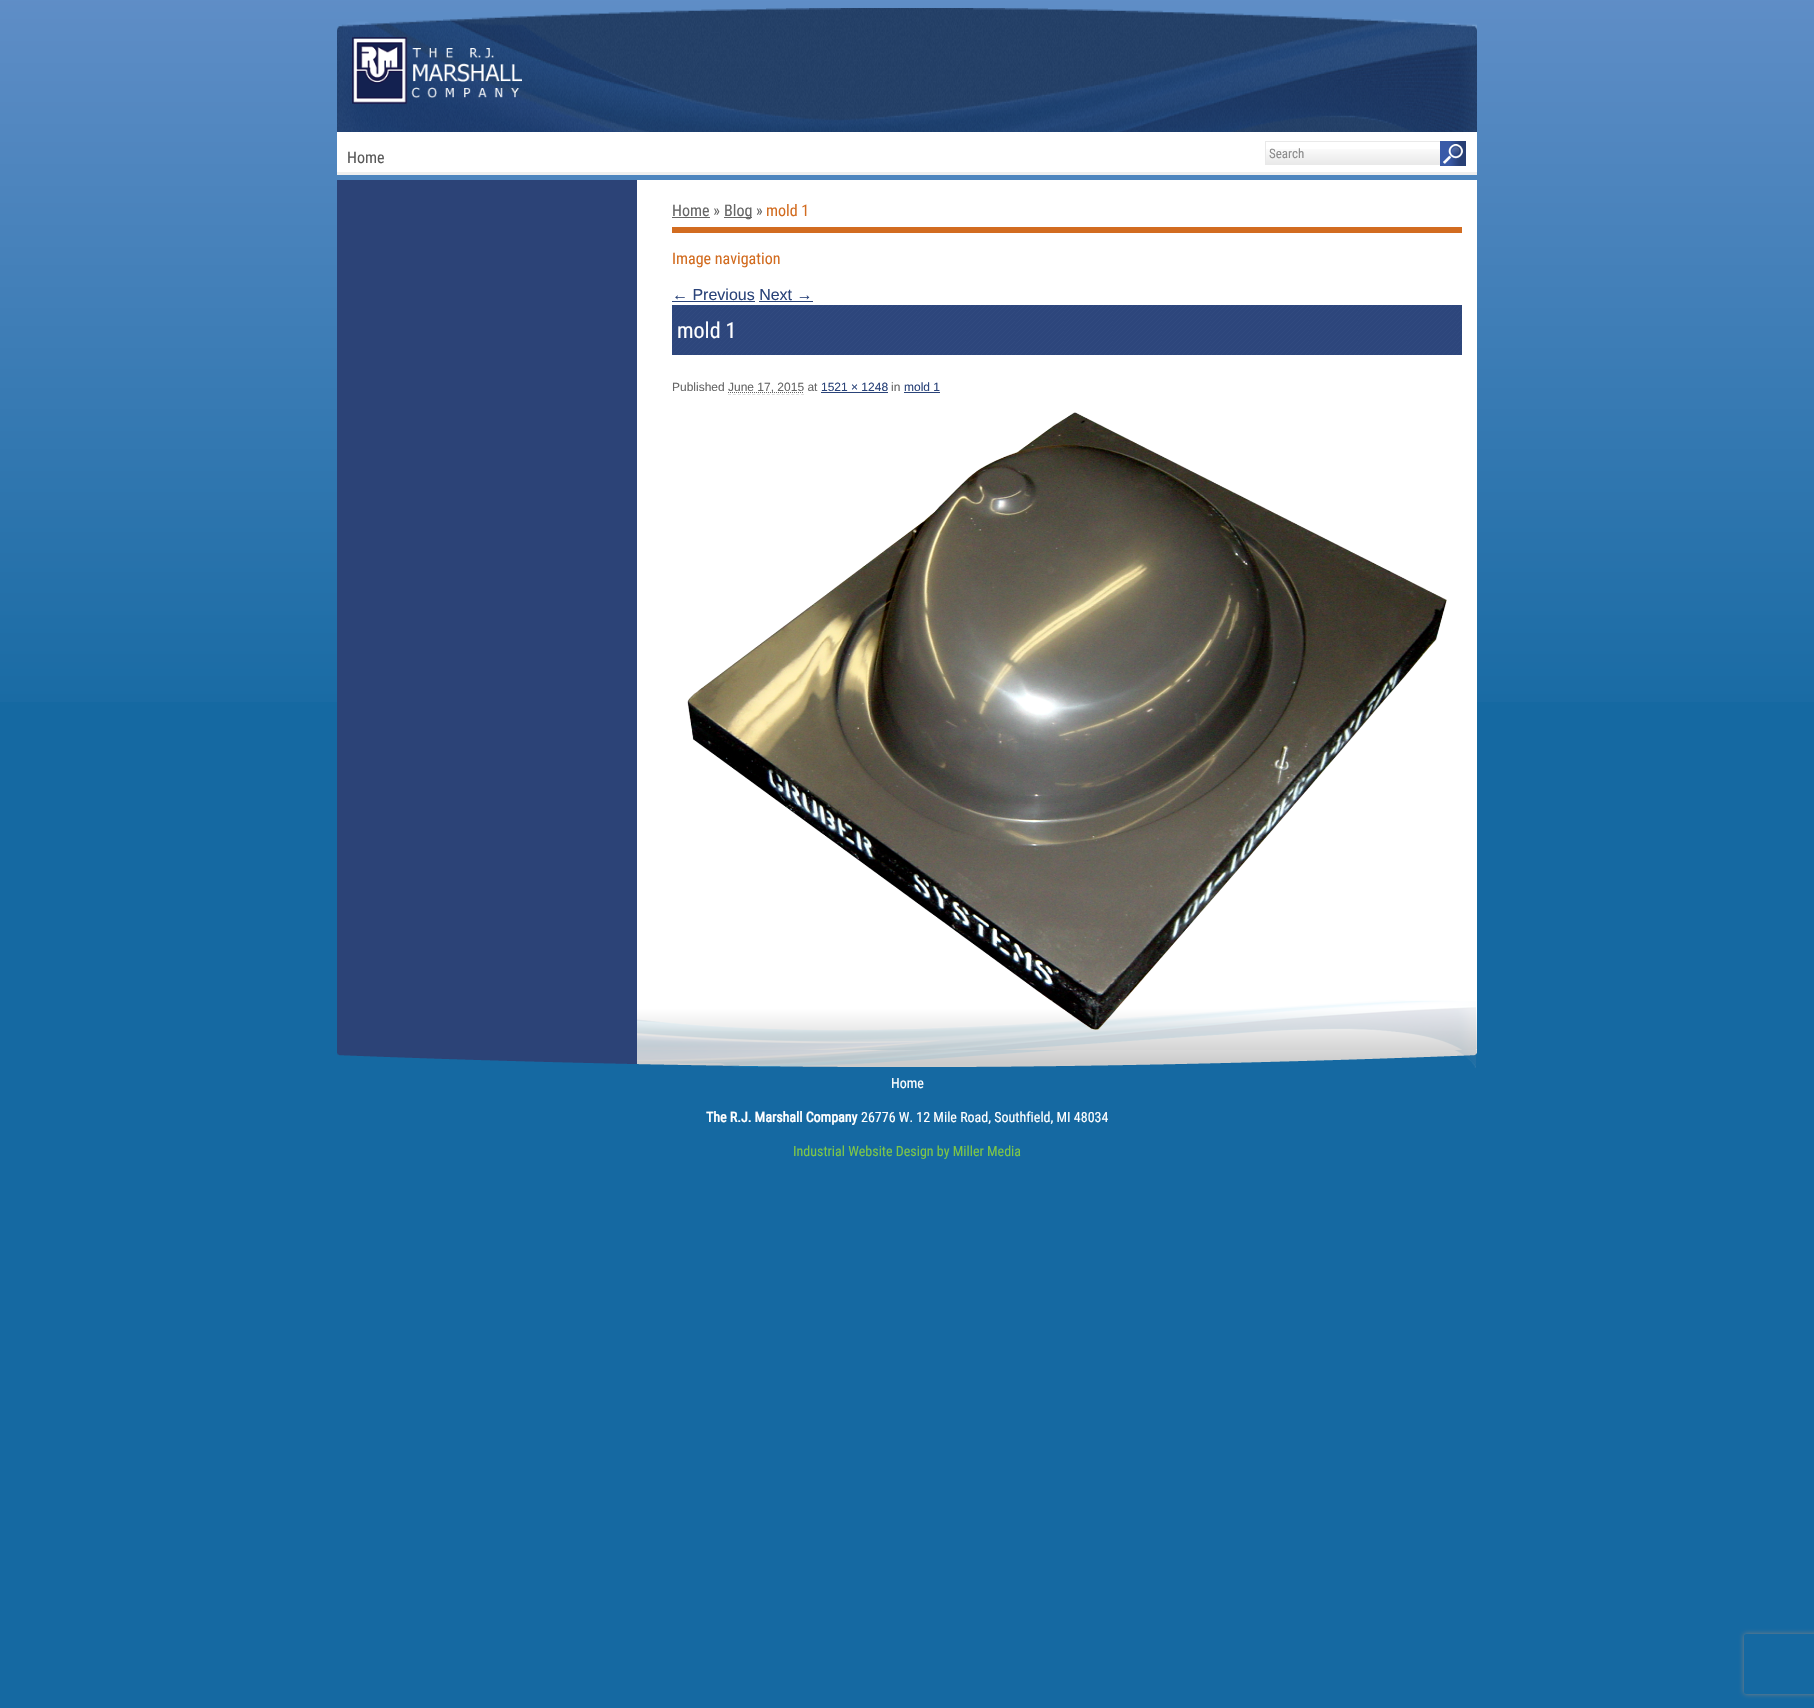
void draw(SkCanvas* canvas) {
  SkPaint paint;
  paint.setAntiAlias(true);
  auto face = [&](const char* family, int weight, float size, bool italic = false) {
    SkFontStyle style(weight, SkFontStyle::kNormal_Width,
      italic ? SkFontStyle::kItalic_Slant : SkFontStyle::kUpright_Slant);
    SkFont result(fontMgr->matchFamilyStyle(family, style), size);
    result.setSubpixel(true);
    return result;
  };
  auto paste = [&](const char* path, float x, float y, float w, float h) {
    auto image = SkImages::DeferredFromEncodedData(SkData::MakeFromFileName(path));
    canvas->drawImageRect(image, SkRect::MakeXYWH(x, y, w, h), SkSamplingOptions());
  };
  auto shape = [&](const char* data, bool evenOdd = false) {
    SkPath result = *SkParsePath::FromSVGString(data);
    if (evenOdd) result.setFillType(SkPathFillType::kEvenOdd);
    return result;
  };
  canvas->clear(0xff1569a2);
  paste("img/1.png", 0, 0, 1814, 702);
  paste("img/2.png", 337, 8, 1140, 124);
  paste("img/3.png", 352, 37, 170, 67);
  paint.setColor(0xffffffff);
  canvas->drawRect(SkRect::MakeXYWH(337, 132, 1140, 40), paint);
  paint.setColor(0xffefefef);
  canvas->drawRect(SkRect::MakeXYWH(337, 172, 1140, 3), paint);
  paste("img/4.png", 1266, 149, 174, 16);
  paint.setColor(0xffe9e9e9);
  canvas->drawRect(SkRect::MakeXYWH(1265, 141, 175, 1), paint);
  canvas->drawRect(SkRect::MakeXYWH(1265, 141, 1, 24), paint);
  paste("img/5.png", 1440, 141, 26, 25);
  paint.setColor(0xffffffff);
  canvas->drawRect(SkRect::MakeXYWH(637, 180, 840, 870), paint);
  paste("img/6.png", 337, 180, 1140, 870);
  {
    const struct { float x, y, w, h; SkColor color; } items[] = {
      {672, 227, 790, 6, 0xffd26c20},
      {672, 217, 38, 1, 0xff666666},
      {724, 217, 28, 1, 0xff666666},
      {672, 301, 83, 1, 0xff2a4379},
      {759, 301, 54, 1, 0xff2a4379},
    };
    for (auto [x, y, w, h, color] : items) {
      paint.setColor(color);
      canvas->drawRect(SkRect::MakeXYWH(x, y, w, h), paint);
    }
  }
  paste("img/7.png", 672, 305, 790, 50);
  paint.setStroke(true);
  paint.setStrokeWidth(1);
  paint.setColor(0xffe0e0e0);
  paint.setPathEffect(SkDashPathEffect::Make({{3, 1.87f}}, 0));
  canvas->drawPath(shape("M728 394.5H804"), paint);
  paint.setPathEffect(nullptr);
  paint.setColor(0xff666666);
  paint.setPathEffect(SkDashPathEffect::Make({{1, 1}}, 0));
  canvas->drawPath(shape("M728 392.5H804"), paint);
  paint.setPathEffect(nullptr);
  paint.setStroke(false);
  paint.setColor(0xff2a4379);
  canvas->drawRect(SkRect::MakeXYWH(821, 392, 67, 1), paint);
  canvas->drawRect(SkRect::MakeXYWH(904, 392, 36, 1), paint);
  paste("img/8.png", 687, 412, 760, 618);
  paste("img/9.png", 337, 1050, 1140, 18);
  canvas->save();
  canvas->clipPath(shape("M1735 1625H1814V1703H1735ZM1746 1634H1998C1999 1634 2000 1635 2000 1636V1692C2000 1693 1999 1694 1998 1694H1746C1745 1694 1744 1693 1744 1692V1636C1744 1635 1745 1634 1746 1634Z", true), true);
  paint.setColor(0xff808080);
  paint.setMaskFilter(SkMaskFilter::MakeBlur(kNormal_SkBlurStyle, 2.5f));
  canvas->drawRoundRect(SkRect::MakeXYWH(1744, 1634, 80, 60), 2, 2, paint);
  paint.setMaskFilter(nullptr);
  canvas->restore();
  auto f0 = face("Roboto Condensed", 400, 16);
  paint.setColor(0xff595959);
  canvas->drawString("Home", 347, 163, f0, paint);
  auto f1 = face("Roboto Condensed", 400, 13);
  paint.setColor(0xff8c8c8c);
  canvas->drawString("Search", 1269, 158, f1, paint);
  paint.setColor(0xff666666);
  canvas->drawString("Home »", 672, 216, f0, paint);
  canvas->drawString("Blog »", 724, 216, f0, paint);
  paint.setColor(0xffd26c20);
  canvas->drawString("mold 1", 766, 216, f0, paint);
  canvas->drawString("Image navigation", 672, 264, f0, paint);
  auto f2 = face("Liberation Sans", 400, 16);
  paint.setColor(0xff2a4379);
  canvas->drawString("← Previous Next →", 672, 300, f2, paint);
  auto f3 = face("Roboto Condensed", 400, 22);
  paint.setColor(0xffffffff);
  canvas->drawString("mold 1", 677, 338, f3, paint);
  auto f4 = face("Liberation Sans", 400, 12);
  paint.setColor(0xff666666);
  canvas->drawString("Published", 672, 391, f4, paint);
  canvas->drawString("June 17, 2015 at", 728, 391, f4, paint);
  paint.setColor(0xff2a4379);
  canvas->drawString("1521 × 1248", 821, 391, f4, paint);
  paint.setColor(0xff666666);
  canvas->drawString("in", 891, 391, f4, paint);
  paint.setColor(0xff2a4379);
  canvas->drawString("mold 1", 904, 391, f4, paint);
  auto f5 = face("Roboto Condensed", 400, 14);
  paint.setColor(0xffffffff);
  canvas->drawString("Home", 891, 1088, f5, paint);
  auto f6 = face("Roboto Condensed", 700, 14);
  canvas->drawString("The R.J. Marshall Company", 706, 1122, f6, paint);
  canvas->drawString("26776 W. 12 Mile Road, Southfield, MI 48034", 861, 1122, f5, paint);
  paint.setColor(0xff7dc648);
  canvas->drawString("Industrial Website Design by Miller Media", 793, 1156, f5, paint);
}
